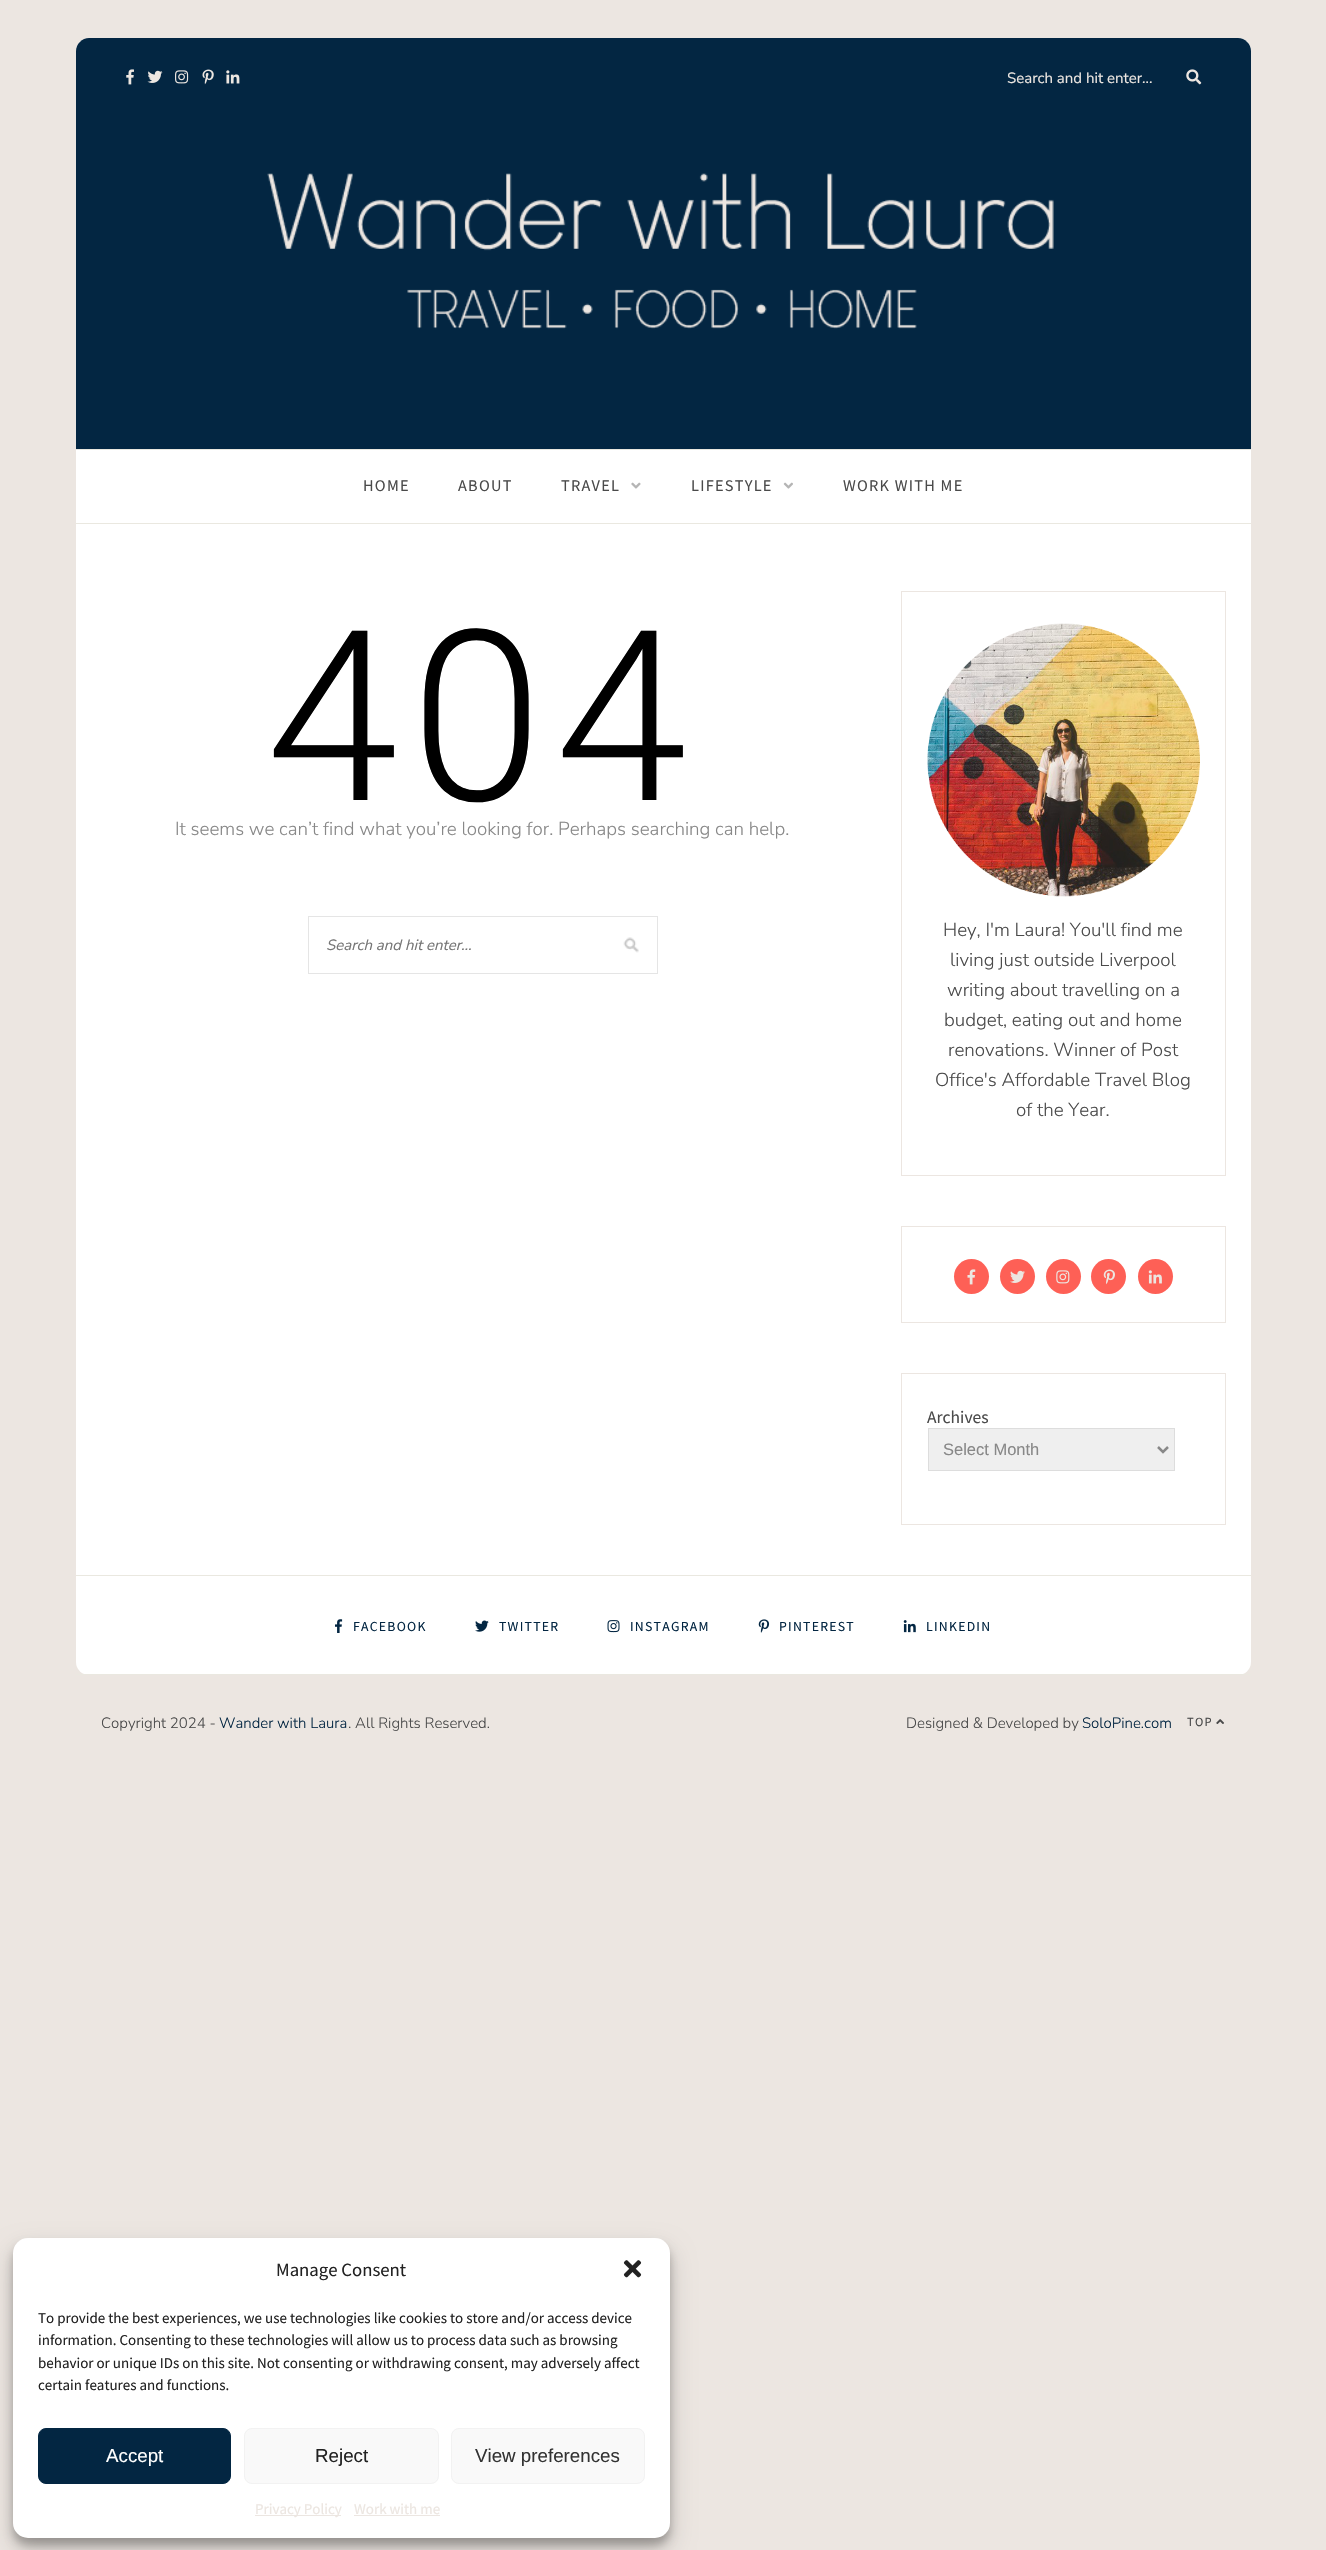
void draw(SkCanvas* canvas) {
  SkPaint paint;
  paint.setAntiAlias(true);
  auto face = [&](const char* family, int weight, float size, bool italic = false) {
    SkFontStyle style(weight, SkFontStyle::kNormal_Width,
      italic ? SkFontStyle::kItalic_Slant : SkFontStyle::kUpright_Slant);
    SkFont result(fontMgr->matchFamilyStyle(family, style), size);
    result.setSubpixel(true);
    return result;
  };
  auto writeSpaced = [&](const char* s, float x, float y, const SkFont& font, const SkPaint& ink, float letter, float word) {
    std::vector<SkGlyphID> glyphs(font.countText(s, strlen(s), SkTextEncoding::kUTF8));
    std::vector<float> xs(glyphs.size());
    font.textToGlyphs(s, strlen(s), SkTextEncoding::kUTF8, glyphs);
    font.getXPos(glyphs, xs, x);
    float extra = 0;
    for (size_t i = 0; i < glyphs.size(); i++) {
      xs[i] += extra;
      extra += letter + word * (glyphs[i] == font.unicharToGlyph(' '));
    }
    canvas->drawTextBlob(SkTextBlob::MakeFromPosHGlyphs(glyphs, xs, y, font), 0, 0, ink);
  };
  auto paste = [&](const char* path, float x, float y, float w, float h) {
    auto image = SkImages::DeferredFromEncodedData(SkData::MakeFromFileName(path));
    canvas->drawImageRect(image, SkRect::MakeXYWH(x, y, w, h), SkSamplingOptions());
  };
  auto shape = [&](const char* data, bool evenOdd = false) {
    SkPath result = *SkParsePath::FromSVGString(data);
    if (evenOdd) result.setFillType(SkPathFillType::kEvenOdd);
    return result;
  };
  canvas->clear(0xffece6e1);
  paint.setColor(0xffffffff);
  canvas->drawRoundRect(SkRect::MakeXYWH(76, 38, 1175, 1637), 13, 13, paint);
  paint.setColor(0xff032642);
  canvas->drawPath(shape("M89 38H1238C1245 38 1251 44 1251 51V449H76V51C76 44 82 38 89 38Z"), paint);
  paste("img/1.png", 126, 69, 8, 16);
  paste("img/2.png", 147, 70, 16, 13);
  paste("img/3.png", 175, 70, 14, 14);
  paste("img/4.png", 202, 69, 12, 16);
  paste("img/5.png", 226, 70, 14, 14);
  paste("img/6.png", 1186, 69, 16, 16);
  paste("img/7.png", 267, 173, 787, 156);
  paint.setColor(0xffeae8e0);
  canvas->drawRect(SkRect::MakeXYWH(76, 449, 1175, 1), paint);
  canvas->drawRect(SkRect::MakeXYWH(76, 523, 1175, 1), paint);
  paste("img/8.png", 631, 482, 10, 7);
  paste("img/9.png", 783, 482, 10, 7);
  paste("img/10.png", 623, 937, 16, 16);
  paint.setStroke(true);
  paint.setStrokeWidth(1);
  paint.setColor(0xffe5e5e5);
  canvas->drawRect(SkRect::MakeXYWH(308.5f, 916.5f, 349, 57), paint);
  paint.setColor(0xffece6e1);
  canvas->drawRect(SkRect::MakeXYWH(901.5f, 591.5f, 324, 584), paint);
  paste("img/11.png", 927, 623, 273, 274);
  canvas->drawRect(SkRect::MakeXYWH(901.5f, 1226.5f, 324, 96), paint);
  paint.setStroke(false);
  paint.setColor(0xfffe6056);
  canvas->drawCircle(971.5f, 1276.5f, 17.5f, paint);
  paste("img/12.png", 967, 1269, 9, 16);
  canvas->drawCircle(1017.5f, 1276.5f, 17.5f, paint);
  paste("img/13.png", 1010, 1270, 15, 13);
  canvas->drawCircle(1063.5f, 1276.5f, 17.5f, paint);
  paste("img/14.png", 1056, 1270, 14, 14);
  canvas->drawCircle(1108.5f, 1276.5f, 17.5f, paint);
  paste("img/15.png", 1103, 1269, 12, 16);
  canvas->drawCircle(1155.5f, 1276.5f, 17.5f, paint);
  paste("img/16.png", 1148, 1270, 14, 14);
  paint.setStroke(true);
  paint.setColor(0xffece6e1);
  canvas->drawRect(SkRect::MakeXYWH(901.5f, 1373.5f, 324, 151), paint);
  paint.setStroke(false);
  paint.setColor(0xffefefef);
  canvas->drawRect(SkRect::MakeXYWH(928.5f, 1428.5f, 246, 42), paint);
  paint.setStroke(true);
  paint.setColor(0xffdddddd);
  canvas->drawRect(SkRect::MakeXYWH(928.5f, 1428.5f, 246, 42), paint);
  paint.setStrokeWidth(2.5f);
  paint.setColor(0xff888888);
  canvas->drawPath(shape("M1158 1447L1163 1452L1168 1447"), paint);
  paint.setStroke(false);
  paint.setColor(0xffeae8e0);
  canvas->drawRect(SkRect::MakeXYWH(76, 1575, 1175, 1), paint);
  canvas->drawRect(SkRect::MakeXYWH(76, 1674, 1175, 1), paint);
  paste("img/17.png", 335, 1619, 8, 14);
  paste("img/18.png", 475, 1620, 14, 12);
  paste("img/19.png", 607, 1620, 13, 13);
  paste("img/20.png", 758, 1619, 12, 14);
  paste("img/21.png", 903, 1620, 13, 13);
  paste("img/22.png", 1216, 1719, 8, 5);
  paint.setColor(0x3b000000);
  paint.setMaskFilter(SkMaskFilter::MakeBlur(kNormal_SkBlurStyle, 4));
  canvas->drawRoundRect(SkRect::MakeXYWH(13, 2245, 657, 300), 15, 15, paint);
  paint.setMaskFilter(nullptr);
  paint.setColor(0x30000000);
  paint.setMaskFilter(SkMaskFilter::MakeBlur(kNormal_SkBlurStyle, 12.5f));
  canvas->drawRoundRect(SkRect::MakeXYWH(13, 2250, 657, 300), 15, 15, paint);
  paint.setMaskFilter(nullptr);
  paint.setColor(0xffffffff);
  canvas->drawRoundRect(SkRect::MakeXYWH(13, 2238, 657, 300), 15, 15, paint);
  paste("img/23.png", 623, 2260, 19, 18);
  paint.setColor(0xff032642);
  canvas->drawRoundRect(SkRect::MakeXYWH(38.5f, 2428.5f, 192, 55), 7.5f, 7.5f, paint);
  paint.setStroke(true);
  paint.setStrokeWidth(1);
  canvas->drawRoundRect(SkRect::MakeXYWH(38.5f, 2428.5f, 192, 55), 7.5f, 7.5f, paint);
  paint.setStroke(false);
  paint.setColor(0xfff9f9f9);
  canvas->drawRoundRect(SkRect::MakeXYWH(244.5f, 2428.5f, 194, 55), 7.5f, 7.5f, paint);
  paint.setStroke(true);
  paint.setColor(0xfff2f2f2);
  canvas->drawRoundRect(SkRect::MakeXYWH(244.5f, 2428.5f, 194, 55), 7.5f, 7.5f, paint);
  paint.setStroke(false);
  paint.setColor(0xfff9f9f9);
  canvas->drawRoundRect(SkRect::MakeXYWH(451.5f, 2428.5f, 193, 55), 7.5f, 7.5f, paint);
  paint.setStroke(true);
  paint.setColor(0xfff2f2f2);
  canvas->drawRoundRect(SkRect::MakeXYWH(451.5f, 2428.5f, 193, 55), 7.5f, 7.5f, paint);
  paint.setStroke(false);
  paint.setColor(0xffece6e1);
  canvas->drawRect(SkRect::MakeXYWH(255, 2515, 86, 1), paint);
  canvas->drawRect(SkRect::MakeXYWH(354, 2515, 86, 1), paint);
  auto f0 = face("Nunito Sans", 400, 15);
  canvas->drawString("Search and hit enter...", 1007, 83, f0, paint);
  auto f1 = face("Source Sans Pro", 400, 16.25f);
  paint.setColor(0xff4a4a4a);
  {
    const struct { const char* s; float x, y; } items[] = {
      {"HOME", 363, 491},
      {"ABOUT", 458, 491},
      {"TRAVEL", 561, 491},
      {"LIFESTYLE", 691, 491},
      {"WORK WITH ME", 843, 491},
    };
    for (auto [s, x, y] : items) {
      writeSpaced(s, x, y, f1, paint, 1.25f, 0);
    }
  }
  auto f2 = face("Roboto", 300, 238);
  paint.setColor(0xff000000);
  writeSpaced("404", 266, 800, f2, paint, 12.5f, 0);
  auto f3 = face("Nunito Sans", 300, 18.75f);
  paint.setColor(0xff888888);
  canvas->drawString("It seems we can’t find what you’re looking for. Perhaps searching can help.", 175, 835, f3, paint);
  auto f4 = face("Nunito Sans", 400, 15, true);
  paint.setColor(0xff757575);
  canvas->drawString("Search and hit enter...", 326, 950, f4, paint);
  paint.setColor(0xff4a4a4a);
  {
    const struct { const char* s; float x, y; } items[] = {
      {"Hey, I'm Laura! You'll find me", 943, 936},
      {"living just outside Liverpool", 950, 966},
      {"writing about travelling on a", 947, 996},
      {"budget, eating out and home", 944, 1026},
      {"renovations. Winner of Post", 948, 1056},
      {"Office's Affordable Travel Blog", 935, 1086},
      {"of the Year.", 1016, 1116},
    };
    for (auto [s, x, y] : items) {
      canvas->drawString(s, x, y, f3, paint);
    }
  }
  auto f5 = face("Source Sans Pro", 400, 17.5f);
  canvas->drawString("Archives", 927, 1423, f5, paint);
  auto f6 = face("Liberation Sans", 400, 16.5f);
  paint.setColor(0xff888888);
  canvas->drawString("Select Month", 943, 1455, f6, paint);
  auto f7 = face("Source Sans Pro", 400, 13.75f);
  paint.setColor(0xff032642);
  {
    const struct { const char* s; float x, y; } items[] = {
      {"FACEBOOK", 353, 1631},
      {"TWITTER", 499, 1631},
      {"INSTAGRAM", 630, 1631},
      {"PINTEREST", 779, 1631},
      {"LINKEDIN", 926, 1631},
    };
    for (auto [s, x, y] : items) {
      writeSpaced(s, x, y, f7, paint, 1.25f, 0);
    }
  }
  auto f8 = face("Nunito Sans", 300, 15);
  paint.setColor(0xff4a4a4a);
  canvas->drawString("Copyright 2024 -", 101, 1728, f8, paint);
  paint.setColor(0xff032642);
  canvas->drawString("Wander with Laura", 219, 1728, f8, paint);
  paint.setColor(0xff4a4a4a);
  canvas->drawString(". All Rights Reserved.", 348, 1728, f8, paint);
  canvas->drawString("Designed & Developed by", 906, 1728, f8, paint);
  paint.setColor(0xff032642);
  canvas->drawString("SoloPine.com", 1082, 1728, f8, paint);
  auto f9 = face("Source Sans Pro", 400, 12.5f);
  paint.setColor(0xff4a4a4a);
  writeSpaced("TOP", 1187, 1726, f9, paint, 1.25f, 0);
  auto f10 = face("Source Sans Pro", 400, 18.75f);
  paint.setColor(0xff222222);
  canvas->drawString("Manage Consent", 276, 2276, f10, paint);
  auto f11 = face("Source Sans Pro", 400, 15);
  {
    const struct { const char* s; float x, y; } items[] = {
      {"To provide the best experiences, we use technologies like cookies to store and/or access device", 38, 2323},
      {"information. Consenting to these technologies will allow us to process data such as browsing", 38, 2345},
      {"behavior or unique IDs on this site. Not consenting or withdrawing consent, may adversely affect", 38, 2368},
      {"certain features and functions.", 38, 2390},
    };
    for (auto [s, x, y] : items) {
      canvas->drawString(s, x, y, f11, paint);
    }
  }
  auto f12 = face("Liberation Sans", 400, 18.75f);
  paint.setColor(0xffffffff);
  canvas->drawString("Accept", 106, 2462, f12, paint);
  paint.setColor(0xff222222);
  canvas->drawString("Reject", 315, 2462, f12, paint);
  paint.setColor(0xff333333);
  canvas->drawString("View preferences", 475, 2462, f12, paint);
  paint.setColor(0xffece6e1);
  canvas->drawString("Privacy Policy", 255, 2514, f11, paint);
  canvas->drawString("Work with me", 354, 2514, f11, paint);
}
